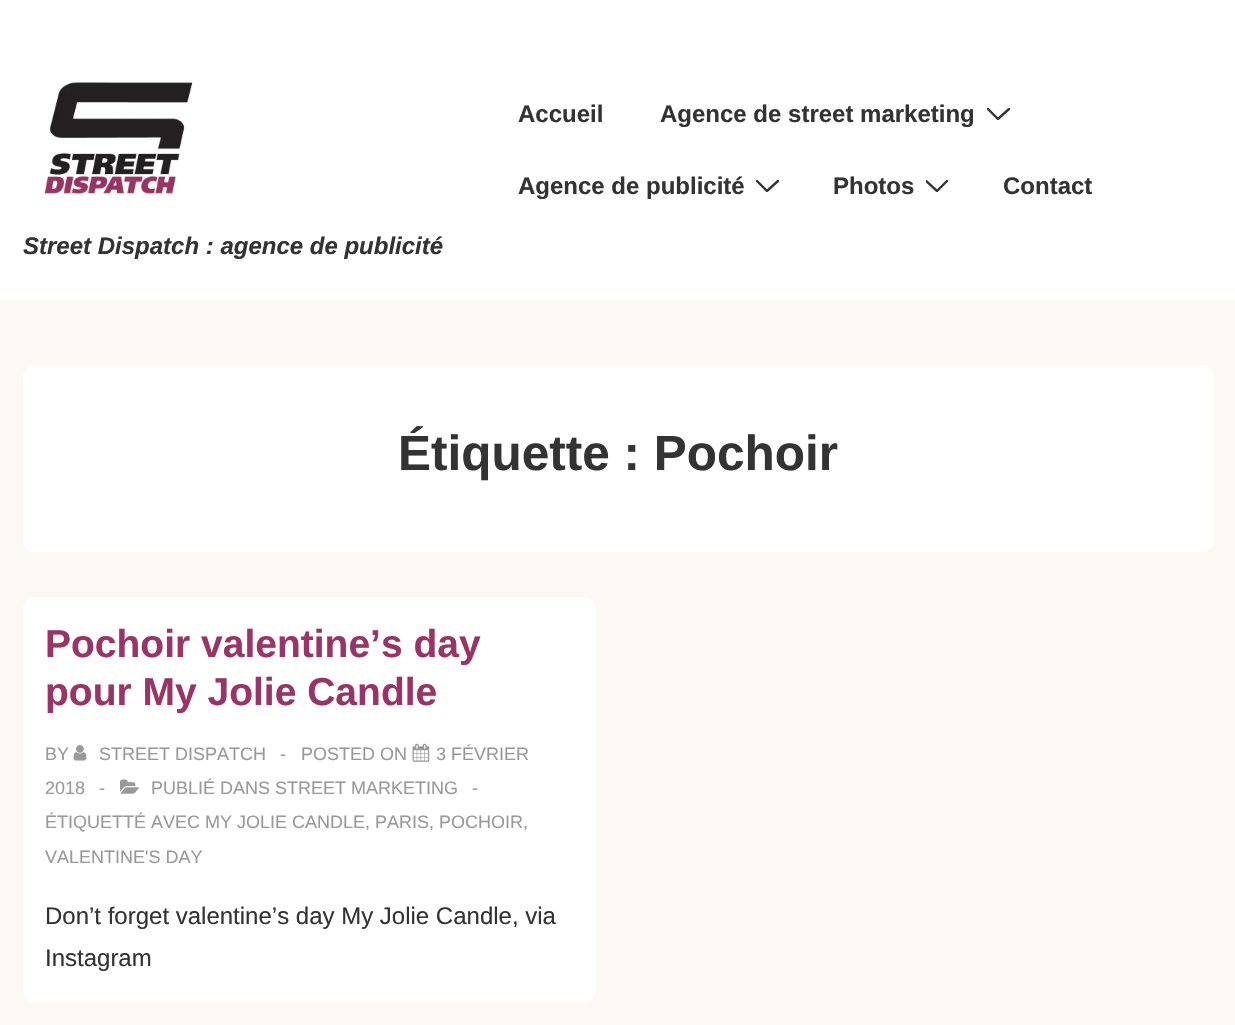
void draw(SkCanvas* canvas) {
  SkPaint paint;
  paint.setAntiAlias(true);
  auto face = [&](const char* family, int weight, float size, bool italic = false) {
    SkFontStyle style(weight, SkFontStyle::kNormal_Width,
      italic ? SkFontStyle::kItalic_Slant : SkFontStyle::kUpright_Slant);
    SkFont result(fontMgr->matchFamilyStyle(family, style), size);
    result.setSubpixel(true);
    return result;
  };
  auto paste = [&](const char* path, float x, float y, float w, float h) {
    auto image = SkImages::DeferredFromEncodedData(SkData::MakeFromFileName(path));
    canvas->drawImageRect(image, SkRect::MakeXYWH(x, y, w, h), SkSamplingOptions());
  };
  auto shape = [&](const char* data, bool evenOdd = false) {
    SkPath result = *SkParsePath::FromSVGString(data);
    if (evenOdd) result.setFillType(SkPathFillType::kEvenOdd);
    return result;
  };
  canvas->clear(0xfffcf9f5);
  paint.setColor(0xffffffff);
  canvas->drawRect(SkRect::MakeXYWH(0, 0, 1235, 300), paint);
  canvas->save();
  canvas->clipRect(SkRect::MakeXYWH(987, 108, 23, 12));
  paint.setStroke(true);
  paint.setStrokeWidth(2.4f);
  paint.setStrokeCap(SkPaint::kRound_Cap);
  paint.setColor(0xff333333);
  canvas->drawPath(shape("M988 109L998 119L1009 109"), paint);
  canvas->restore();
  canvas->save();
  canvas->clipRect(SkRect::MakeXYWH(756, 180, 23, 12));
  canvas->drawPath(shape("M757 181L767 191L778 181"), paint);
  canvas->restore();
  canvas->save();
  canvas->clipRect(SkRect::MakeXYWH(926, 180, 22, 12));
  canvas->drawPath(shape("M926 181L937 191L947 181"), paint);
  canvas->restore();
  paste("img/1.png", 44, 82, 149, 114);
  paint.setStroke(false);
  paint.setColor(0xffffffff);
  canvas->drawRoundRect(SkRect::MakeXYWH(23, 365, 1191, 187), 12, 12, paint);
  canvas->drawRoundRect(SkRect::MakeXYWH(23, 597, 573, 405), 12, 12, paint);
  paste("img/2.png", 73, 745, 14, 16);
  paste("img/3.png", 412, 743, 18, 19);
  paste("img/4.png", 120, 779, 19, 15);
  auto f0 = face("Liberation Sans", 700, 24);
  paint.setColor(0xff333333);
  {
    const struct { const char* s; float x, y; } items[] = {
      {"Accueil", 518, 122},
      {"Agence de street marketing", 660, 122},
      {"Agence de publicité", 518, 194},
      {"Photos", 833, 194},
      {"Contact", 1003, 194},
    };
    for (auto [s, x, y] : items) {
      canvas->drawString(s, x, y, f0, paint);
    }
  }
  auto f1 = face("Liberation Sans", 700, 24, true);
  canvas->drawString("Street Dispatch : agence de publicité", 23, 254, f1, paint);
  auto f2 = face("Liberation Sans", 700, 49.5f);
  canvas->drawString("Étiquette : Pochoir", 398, 470, f2, paint);
  auto f3 = face("Liberation Sans", 700, 39);
  paint.setColor(0xff9a3366);
  canvas->drawString("Pochoir valentine’s day", 45, 657, f3, paint);
  canvas->drawString("pour My Jolie Candle", 45, 705, f3, paint);
  auto f4 = face("Liberation Sans", 400, 18);
  paint.setColor(0xff999999);
  {
    const struct { const char* s; float x, y; } items[] = {
      {"BY", 45, 760},
      {"STREET DISPATCH", 99, 760},
      {"-", 280, 760},
      {"POSTED ON", 301, 760},
      {"3 FÉVRIER", 436, 760},
      {"2018", 45, 794},
      {"-", 99, 794},
      {"PUBLIÉ DANS STREET MARKETING", 151, 794},
      {"-", 472, 794},
      {"ÉTIQUETTÉ AVEC MY JOLIE CANDLE, PARIS, POCHOIR,", 45, 828},
      {"VALENTINE'S DAY", 45, 863},
    };
    for (auto [s, x, y] : items) {
      canvas->drawString(s, x, y, f4, paint);
    }
  }
  auto f5 = face("Liberation Sans", 400, 24);
  paint.setColor(0xff333333);
  canvas->drawString("Don’t forget valentine’s day My Jolie Candle, via", 45, 924, f5, paint);
  canvas->drawString("Instagram", 45, 966, f5, paint);
}
